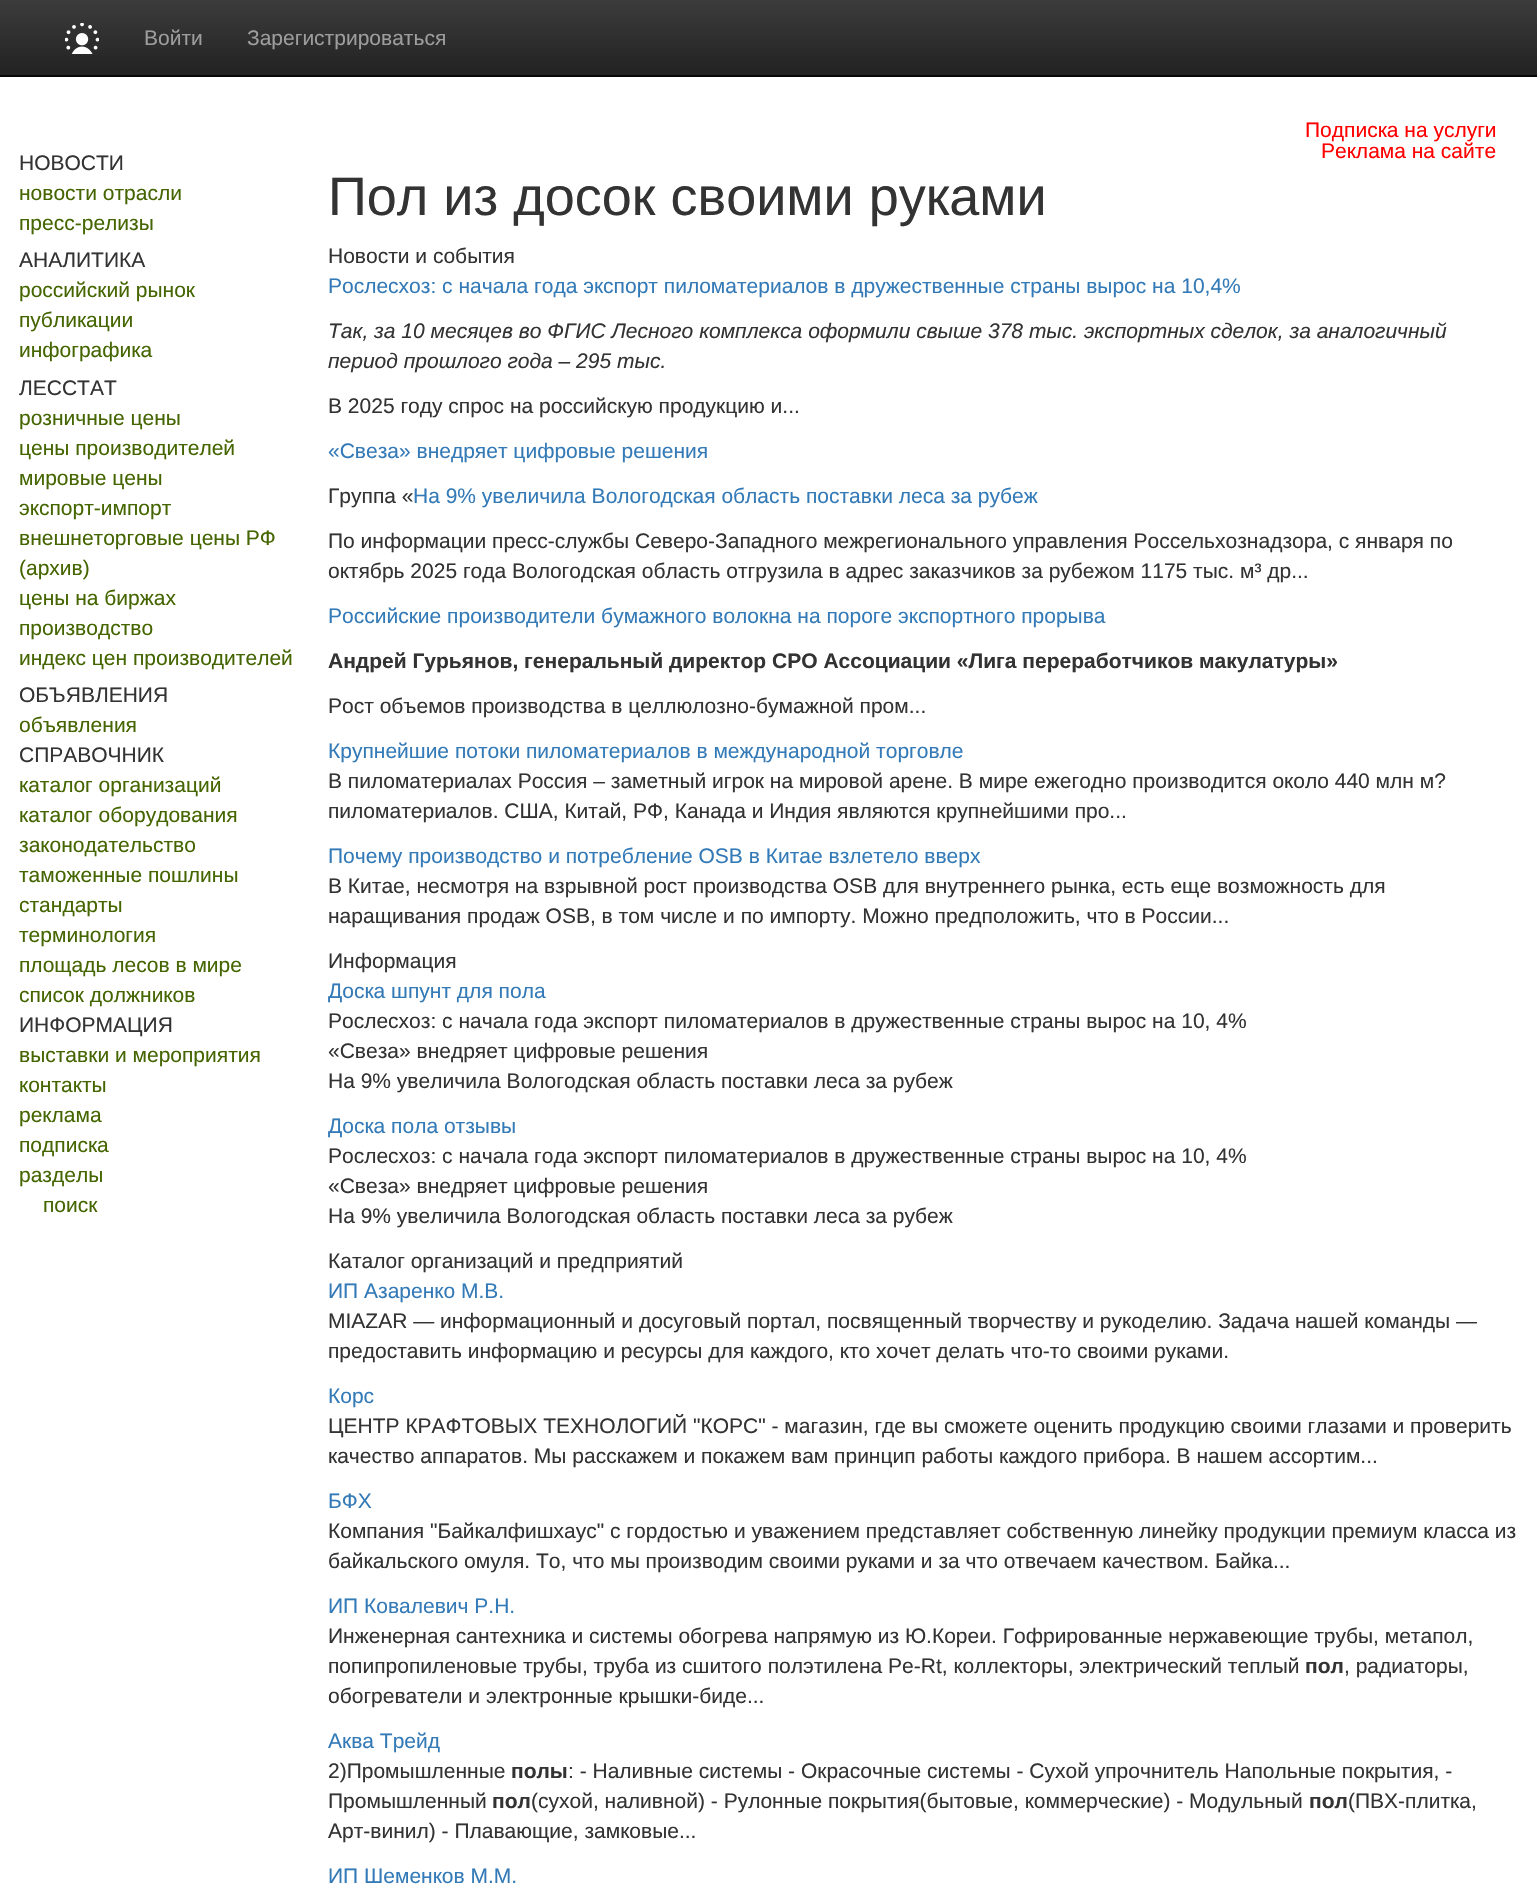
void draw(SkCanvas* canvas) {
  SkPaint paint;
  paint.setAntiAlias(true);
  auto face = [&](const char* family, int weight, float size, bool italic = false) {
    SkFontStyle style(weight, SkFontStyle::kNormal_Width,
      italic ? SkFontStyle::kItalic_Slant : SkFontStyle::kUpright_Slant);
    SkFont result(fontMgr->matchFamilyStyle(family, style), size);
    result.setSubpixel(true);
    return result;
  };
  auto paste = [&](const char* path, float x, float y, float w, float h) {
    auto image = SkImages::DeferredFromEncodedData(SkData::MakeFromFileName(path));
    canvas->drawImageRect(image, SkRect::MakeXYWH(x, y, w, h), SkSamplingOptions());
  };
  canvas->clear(0xffffffff);
  {
    const SkColor colors[] = {0xff3c3c3c, 0xff222222};
    const float stops[] = {0, 1};
    const SkPoint ends[] = {{769, 0}, {769, 75}};
    paint.setShader(SkGradientShader::MakeLinear(ends, colors, stops, 2, SkTileMode::kClamp));
    paint.setAlpha(255);
  }
  canvas->drawRect(SkRect::MakeXYWH(0, 0, 1537, 75), paint);
  paint.setShader(nullptr);
  paint.setColor(0xff080808);
  canvas->drawRect(SkRect::MakeXYWH(0, 75, 1537, 2), paint);
  paste("img/1.png", 65, 23, 34, 31);
  auto f0 = face("Liberation Sans", 400, 21);
  paint.setColor(0xff9d9d9d);
  canvas->drawString("Войти", 144, 45, f0, paint);
  canvas->drawString("Зарегистрироваться", 247, 45, f0, paint);
  paint.setColor(0xff333333);
  canvas->drawString("НОВОСТИ", 19, 170, f0, paint);
  paint.setColor(0xff446500);
  canvas->drawString("новости отрасли", 19, 200, f0, paint);
  canvas->drawString("пресс-релизы", 19, 230, f0, paint);
  paint.setColor(0xff333333);
  canvas->drawString("АНАЛИТИКА", 19, 267, f0, paint);
  paint.setColor(0xff446500);
  {
    const struct { const char* s; float x, y; } items[] = {
      {"российский рынок", 19, 297},
      {"публикации", 19, 327},
      {"инфографика", 19, 357},
    };
    for (auto [s, x, y] : items) {
      canvas->drawString(s, x, y, f0, paint);
    }
  }
  paint.setColor(0xff333333);
  canvas->drawString("ЛЕССТАТ", 19, 395, f0, paint);
  paint.setColor(0xff446500);
  {
    const struct { const char* s; float x, y; } items[] = {
      {"розничные цены", 19, 425},
      {"цены производителей", 19, 455},
      {"мировые цены", 19, 485},
      {"экспорт-импорт", 19, 515},
      {"внешнеторговые цены РФ", 19, 545},
      {"(архив)", 19, 575},
      {"цены на биржах", 19, 605},
      {"производство", 19, 635},
      {"индекс цен производителей", 19, 665},
    };
    for (auto [s, x, y] : items) {
      canvas->drawString(s, x, y, f0, paint);
    }
  }
  paint.setColor(0xff333333);
  canvas->drawString("ОБЪЯВЛЕНИЯ", 19, 702, f0, paint);
  paint.setColor(0xff446500);
  canvas->drawString("объявления", 19, 732, f0, paint);
  paint.setColor(0xff333333);
  canvas->drawString("СПРАВОЧНИК", 19, 762, f0, paint);
  paint.setColor(0xff446500);
  {
    const struct { const char* s; float x, y; } items[] = {
      {"каталог организаций", 19, 792},
      {"каталог оборудования", 19, 822},
      {"законодательство", 19, 852},
      {"таможенные пошлины", 19, 882},
      {"стандарты", 19, 912},
      {"терминология", 19, 942},
      {"площадь лесов в мире", 19, 972},
      {"список должников", 19, 1002},
    };
    for (auto [s, x, y] : items) {
      canvas->drawString(s, x, y, f0, paint);
    }
  }
  paint.setColor(0xff333333);
  canvas->drawString("ИНФОРМАЦИЯ", 19, 1032, f0, paint);
  paint.setColor(0xff446500);
  {
    const struct { const char* s; float x, y; } items[] = {
      {"выставки и мероприятия", 19, 1062},
      {"контакты", 19, 1092},
      {"реклама", 19, 1122},
      {"подписка", 19, 1152},
      {"разделы", 19, 1182},
      {"поиск", 43, 1212},
    };
    for (auto [s, x, y] : items) {
      canvas->drawString(s, x, y, f0, paint);
    }
  }
  paint.setColor(0xffff0000);
  canvas->drawString("Подписка на услуги", 1305, 137, f0, paint);
  canvas->drawString("Реклама на сайте", 1321, 158, f0, paint);
  auto f1 = face("Liberation Sans", 400, 54);
  paint.setColor(0xff333333);
  canvas->drawString("Пол из досок своими руками", 328, 215, f1, paint);
  canvas->drawString("Новости и события", 328, 263, f0, paint);
  paint.setColor(0xff337ab7);
  canvas->drawString("Рослесхоз: с начала года экспорт пиломатериалов в дружественные страны вырос на 10,4%", 328, 293, f0, paint);
  auto f2 = face("Liberation Sans", 400, 21, true);
  paint.setColor(0xff333333);
  canvas->drawString("Так, за 10 месяцев во ФГИС Лесного комплекса оформили свыше 378 тыс. экспортных сделок, за аналогичный", 328, 338, f2, paint);
  canvas->drawString("период прошлого года – 295 тыс.", 328, 368, f2, paint);
  canvas->drawString("В 2025 году спрос на российскую продукцию и...", 328, 413, f0, paint);
  paint.setColor(0xff337ab7);
  canvas->drawString("«Свеза» внедряет цифровые решения", 328, 458, f0, paint);
  paint.setColor(0xff333333);
  canvas->drawString("Группа «", 328, 503, f0, paint);
  paint.setColor(0xff337ab7);
  canvas->drawString("На 9% увеличила Вологодская область поставки леса за рубеж", 413, 503, f0, paint);
  paint.setColor(0xff333333);
  canvas->drawString("По информации пресс-службы Северо-Западного межрегионального управления Россельхознадзора, с января по", 328, 548, f0, paint);
  canvas->drawString("октябрь 2025 года Вологодская область отгрузила в адрес заказчиков за рубежом 1175 тыс. м³ др...", 328, 578, f0, paint);
  paint.setColor(0xff337ab7);
  canvas->drawString("Российские производители бумажного волокна на пороге экспортного прорыва", 328, 623, f0, paint);
  auto f3 = face("Liberation Sans", 700, 21);
  paint.setColor(0xff333333);
  canvas->drawString("Андрей Гурьянов, генеральный директор СРО Ассоциации «Лига переработчиков макулатуры»", 328, 668, f3, paint);
  canvas->drawString("Рост объемов производства в целлюлозно-бумажной пром...", 328, 713, f0, paint);
  paint.setColor(0xff337ab7);
  canvas->drawString("Крупнейшие потоки пиломатериалов в международной торговле", 328, 758, f0, paint);
  paint.setColor(0xff333333);
  canvas->drawString("В пиломатериалах Россия – заметный игрок на мировой арене. В мире ежегодно производится около 440 млн м?", 328, 788, f0, paint);
  canvas->drawString("пиломатериалов. США, Китай, РФ, Канада и Индия являются крупнейшими про...", 328, 818, f0, paint);
  paint.setColor(0xff337ab7);
  canvas->drawString("Почему производство и потребление OSB в Китае взлетело вверх", 328, 863, f0, paint);
  paint.setColor(0xff333333);
  {
    const struct { const char* s; float x, y; } items[] = {
      {"В Китае, несмотря на взрывной рост производства OSB для внутреннего рынка, есть еще возможность для", 328, 893},
      {"наращивания продаж OSB, в том числе и по импорту. Можно предположить, что в России...", 328, 923},
      {"Информация", 328, 968},
    };
    for (auto [s, x, y] : items) {
      canvas->drawString(s, x, y, f0, paint);
    }
  }
  paint.setColor(0xff337ab7);
  canvas->drawString("Доска шпунт для пола", 328, 998, f0, paint);
  paint.setColor(0xff333333);
  {
    const struct { const char* s; float x, y; } items[] = {
      {"Рослесхоз: с начала года экспорт пиломатериалов в дружественные страны вырос на 10, 4%", 328, 1028},
      {"«Свеза» внедряет цифровые решения", 328, 1058},
      {"На 9% увеличила Вологодская область поставки леса за рубеж", 328, 1088},
    };
    for (auto [s, x, y] : items) {
      canvas->drawString(s, x, y, f0, paint);
    }
  }
  paint.setColor(0xff337ab7);
  canvas->drawString("Доска пола отзывы", 328, 1133, f0, paint);
  paint.setColor(0xff333333);
  {
    const struct { const char* s; float x, y; } items[] = {
      {"Рослесхоз: с начала года экспорт пиломатериалов в дружественные страны вырос на 10, 4%", 328, 1163},
      {"«Свеза» внедряет цифровые решения", 328, 1193},
      {"На 9% увеличила Вологодская область поставки леса за рубеж", 328, 1223},
      {"Каталог организаций и предприятий", 328, 1268},
    };
    for (auto [s, x, y] : items) {
      canvas->drawString(s, x, y, f0, paint);
    }
  }
  paint.setColor(0xff337ab7);
  canvas->drawString("ИП Азаренко М.В.", 328, 1298, f0, paint);
  paint.setColor(0xff333333);
  canvas->drawString("MIAZAR — информационный и досуговый портал, посвященный творчеству и рукоделию. Задача нашей команды —", 328, 1328, f0, paint);
  canvas->drawString("предоставить информацию и ресурсы для каждого, кто хочет делать что-то своими руками.", 328, 1358, f0, paint);
  paint.setColor(0xff337ab7);
  canvas->drawString("Корс", 328, 1403, f0, paint);
  paint.setColor(0xff333333);
  canvas->drawString("ЦЕНТР КРАФТОВЫХ ТЕХНОЛОГИЙ \"КОРС\" - магазин, где вы сможете оценить продукцию своими глазами и проверить", 328, 1433, f0, paint);
  canvas->drawString("качество аппаратов. Мы расскажем и покажем вам принцип работы каждого прибора. В нашем ассортим...", 328, 1463, f0, paint);
  paint.setColor(0xff337ab7);
  canvas->drawString("БФХ", 328, 1508, f0, paint);
  paint.setColor(0xff333333);
  canvas->drawString("Компания \"Байкалфишхаус\" с гордостью и уважением представляет собственную линейку продукции премиум класса из", 328, 1538, f0, paint);
  canvas->drawString("байкальского омуля. То, что мы производим своими руками и за что отвечаем качеством. Байка...", 328, 1568, f0, paint);
  paint.setColor(0xff337ab7);
  canvas->drawString("ИП Ковалевич Р.Н.", 328, 1613, f0, paint);
  paint.setColor(0xff333333);
  canvas->drawString("Инженерная сантехника и системы обогрева напрямую из Ю.Кореи. Гофрированные нержавеющие трубы, метапол,", 328, 1643, f0, paint);
  canvas->drawString("попипропиленовые трубы, труба из сшитого полэтилена Pe-Rt, коллекторы, электрический теплый", 328, 1673, f0, paint);
  canvas->drawString("пол", 1305, 1673, f3, paint);
  canvas->drawString(", радиаторы,", 1344, 1673, f0, paint);
  canvas->drawString("обогреватели и электронные крышки-биде...", 328, 1703, f0, paint);
  paint.setColor(0xff337ab7);
  canvas->drawString("Аква Трейд", 328, 1748, f0, paint);
  paint.setColor(0xff333333);
  canvas->drawString("2)Промышленные", 328, 1778, f0, paint);
  canvas->drawString("полы", 511, 1778, f3, paint);
  canvas->drawString(": - Наливные системы - Окрасочные системы - Сухой упрочнитель Напольные покрытия, -", 568, 1778, f0, paint);
  canvas->drawString("Промышленный", 328, 1808, f0, paint);
  canvas->drawString("пол", 492, 1808, f3, paint);
  canvas->drawString("(сухой, наливной) - Рулонные покрытия(бытовые, коммерческие) - Модульный", 531, 1808, f0, paint);
  canvas->drawString("пол", 1309, 1808, f3, paint);
  canvas->drawString("(ПВХ-плитка,", 1348, 1808, f0, paint);
  canvas->drawString("Арт-винил) - Плавающие, замковые...", 328, 1838, f0, paint);
  paint.setColor(0xff337ab7);
  canvas->drawString("ИП Шеменков М.М.", 328, 1883, f0, paint);
}
